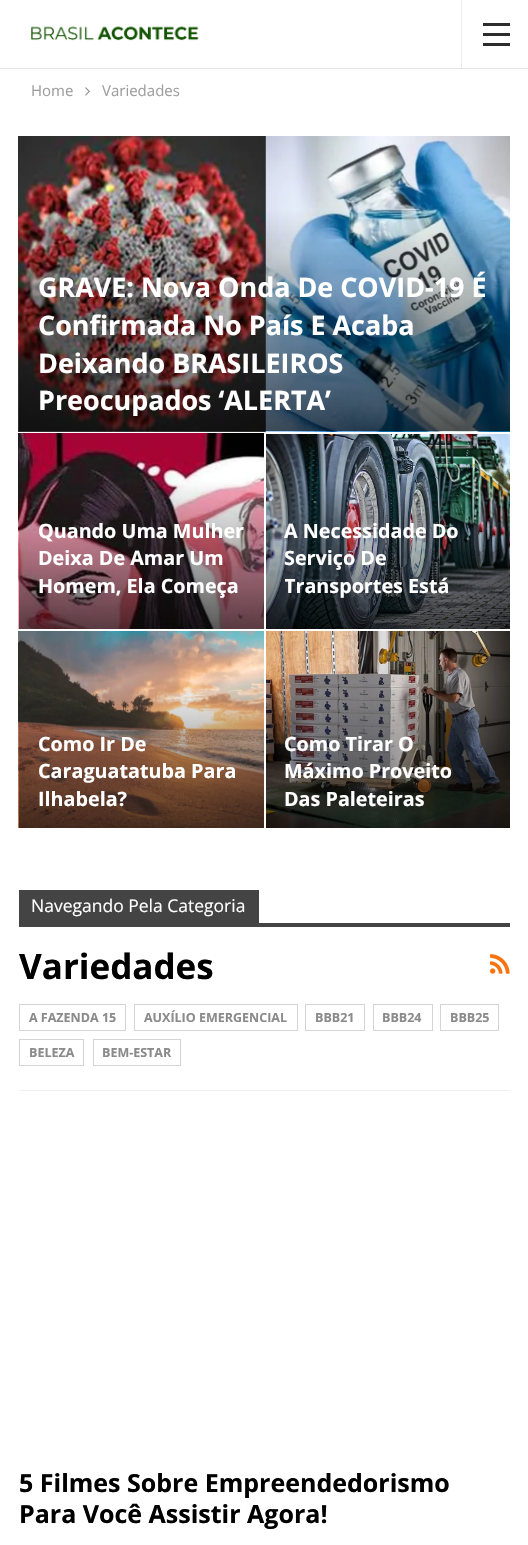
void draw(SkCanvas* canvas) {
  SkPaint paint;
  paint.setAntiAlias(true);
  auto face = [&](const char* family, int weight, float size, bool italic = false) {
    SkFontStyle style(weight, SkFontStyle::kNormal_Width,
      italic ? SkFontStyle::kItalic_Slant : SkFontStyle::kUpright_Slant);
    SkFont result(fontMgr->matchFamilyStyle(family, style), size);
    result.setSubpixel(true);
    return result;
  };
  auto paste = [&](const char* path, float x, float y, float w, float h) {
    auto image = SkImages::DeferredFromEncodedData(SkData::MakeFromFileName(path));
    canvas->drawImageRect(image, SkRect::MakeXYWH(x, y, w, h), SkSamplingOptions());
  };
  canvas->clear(0xffffffff);
  paint.setColor(0xffe5e5e5);
  canvas->drawRect(SkRect::MakeXYWH(0, 68, 528, 1), paint);
  paste("img/1.png", 31, 26, 168, 15);
  {
    const struct { float x, y, w, h; SkColor color; } items[] = {
      {461, 0, 1, 68, 0xffededed},
      {483, 33, 27, 3, 0xff2c2c2c},
      {483, 23, 27, 3, 0xff2c2c2c},
      {483, 43, 27, 3, 0xff2c2c2c},
    };
    for (auto [x, y, w, h, color] : items) {
      paint.setColor(color);
      canvas->drawRect(SkRect::MakeXYWH(x, y, w, h), paint);
    }
  }
  paste("img/2.png", 85, 87, 5, 9);
  paste("img/3.png", 18, 136, 492, 296);
  paste("img/4.png", 18, 433, 246, 196);
  paste("img/5.png", 266, 434, 244, 195);
  paste("img/6.png", 18, 631, 246, 197);
  paste("img/7.png", 266, 631, 244, 197);
  {
    const struct { float x, y, w, h; SkColor color; } items[] = {
      {19, 1090, 491, 1, 0xfff0f0f0},
      {19, 890, 240, 33, 0xff444444},
      {19, 923, 491, 4, 0xff444444},
    };
    for (auto [x, y, w, h, color] : items) {
      paint.setColor(color);
      canvas->drawRect(SkRect::MakeXYWH(x, y, w, h), paint);
    }
  }
  paste("img/8.png", 490, 954, 20, 20);
  paint.setStroke(true);
  paint.setStrokeWidth(1);
  paint.setColor(0xffd4d4d4);
  canvas->drawRect(SkRect::MakeXYWH(19.5f, 1004.5f, 106, 26), paint);
  canvas->drawRect(SkRect::MakeXYWH(134.5f, 1004.5f, 163, 26), paint);
  canvas->drawRect(SkRect::MakeXYWH(305.5f, 1004.5f, 59, 26), paint);
  canvas->drawRect(SkRect::MakeXYWH(373.5f, 1004.5f, 59, 26), paint);
  canvas->drawRect(SkRect::MakeXYWH(440.5f, 1004.5f, 58, 26), paint);
  canvas->drawRect(SkRect::MakeXYWH(19.5f, 1039.5f, 64, 26), paint);
  canvas->drawRect(SkRect::MakeXYWH(93.5f, 1039.5f, 87, 26), paint);
  auto f0 = face("Open Sans", 400, 15);
  paint.setStroke(false);
  paint.setColor(0xff9e9e9e);
  canvas->drawString("Home", 31, 96, f0, paint);
  canvas->drawString("Variedades", 102, 96, f0, paint);
  auto f1 = face("Open Sans", 700, 26.9f);
  paint.setColor(0xffffffff);
  {
    const struct { const char* s; float x, y; } items[] = {
      {"GRAVE: Nova Onda De COVID-19 É", 38, 297},
      {"Confirmada No País E Acaba", 38, 335},
      {"Deixando BRASILEIROS", 38, 373},
    };
    for (auto [s, x, y] : items) {
      canvas->drawString(s, x, y, f1, paint);
    }
  }
  canvas->save();
  canvas->clipRect(SkRect::MakeXYWH(38, 269, 453, 147));
  canvas->drawString("Preocupados ‘ALERTA’", 38, 410, f1, paint);
  canvas->restore();
  auto f2 = face("Open Sans", 700, 19.75f);
  {
    const struct { const char* s; float x, y; } items[] = {
      {"Quando Uma Mulher", 38, 538},
      {"Deixa De Amar Um", 38, 565},
      {"Homem, Ela Começa", 38, 593},
      {"A Necessidade Do", 284, 538},
      {"Serviço De", 284, 565},
    };
    for (auto [s, x, y] : items) {
      canvas->drawString(s, x, y, f2, paint);
    }
  }
  canvas->save();
  canvas->clipRect(SkRect::MakeXYWH(285, 516, 206, 98));
  canvas->drawString("Transportes Está", 284, 593, f2, paint);
  canvas->restore();
  {
    const struct { const char* s; float x, y; } items[] = {
      {"Como Ir De", 38, 751},
      {"Caraguatatuba Para", 38, 778},
      {"Ilhabela?", 38, 806},
      {"Como Tirar O", 284, 751},
      {"Máximo Proveito", 284, 778},
      {"Das Paleteiras", 284, 806},
    };
    for (auto [s, x, y] : items) {
      canvas->drawString(s, x, y, f2, paint);
    }
  }
  auto f3 = face("Open Sans", 400, 17.5f);
  canvas->drawString("Navegando Pela Categoria", 31, 912, f3, paint);
  auto f4 = face("Open Sans", 700, 35);
  paint.setColor(0xff000000);
  canvas->drawString("Variedades", 19, 979, f4, paint);
  auto f5 = face("Open Sans", 700, 12.5f);
  paint.setColor(0xff8b8b8b);
  {
    const struct { const char* s; float x, y; } items[] = {
      {"A FAZENDA 15", 29, 1022},
      {"AUXÍLIO EMERGENCIAL", 144, 1022},
      {"BBB21", 315, 1022},
      {"BBB24", 382, 1022},
      {"BBB25", 450, 1022},
      {"BELEZA", 29, 1057},
      {"BEM-ESTAR", 102, 1057},
    };
    for (auto [s, x, y] : items) {
      canvas->drawString(s, x, y, f5, paint);
    }
  }
  auto f6 = face("Open Sans", 700, 25);
  paint.setColor(0xff000000);
  canvas->drawString("5 Filmes Sobre Empreendedorismo", 19, 1492, f6, paint);
  canvas->drawString("Para Você Assistir Agora!", 19, 1523, f6, paint);
}
